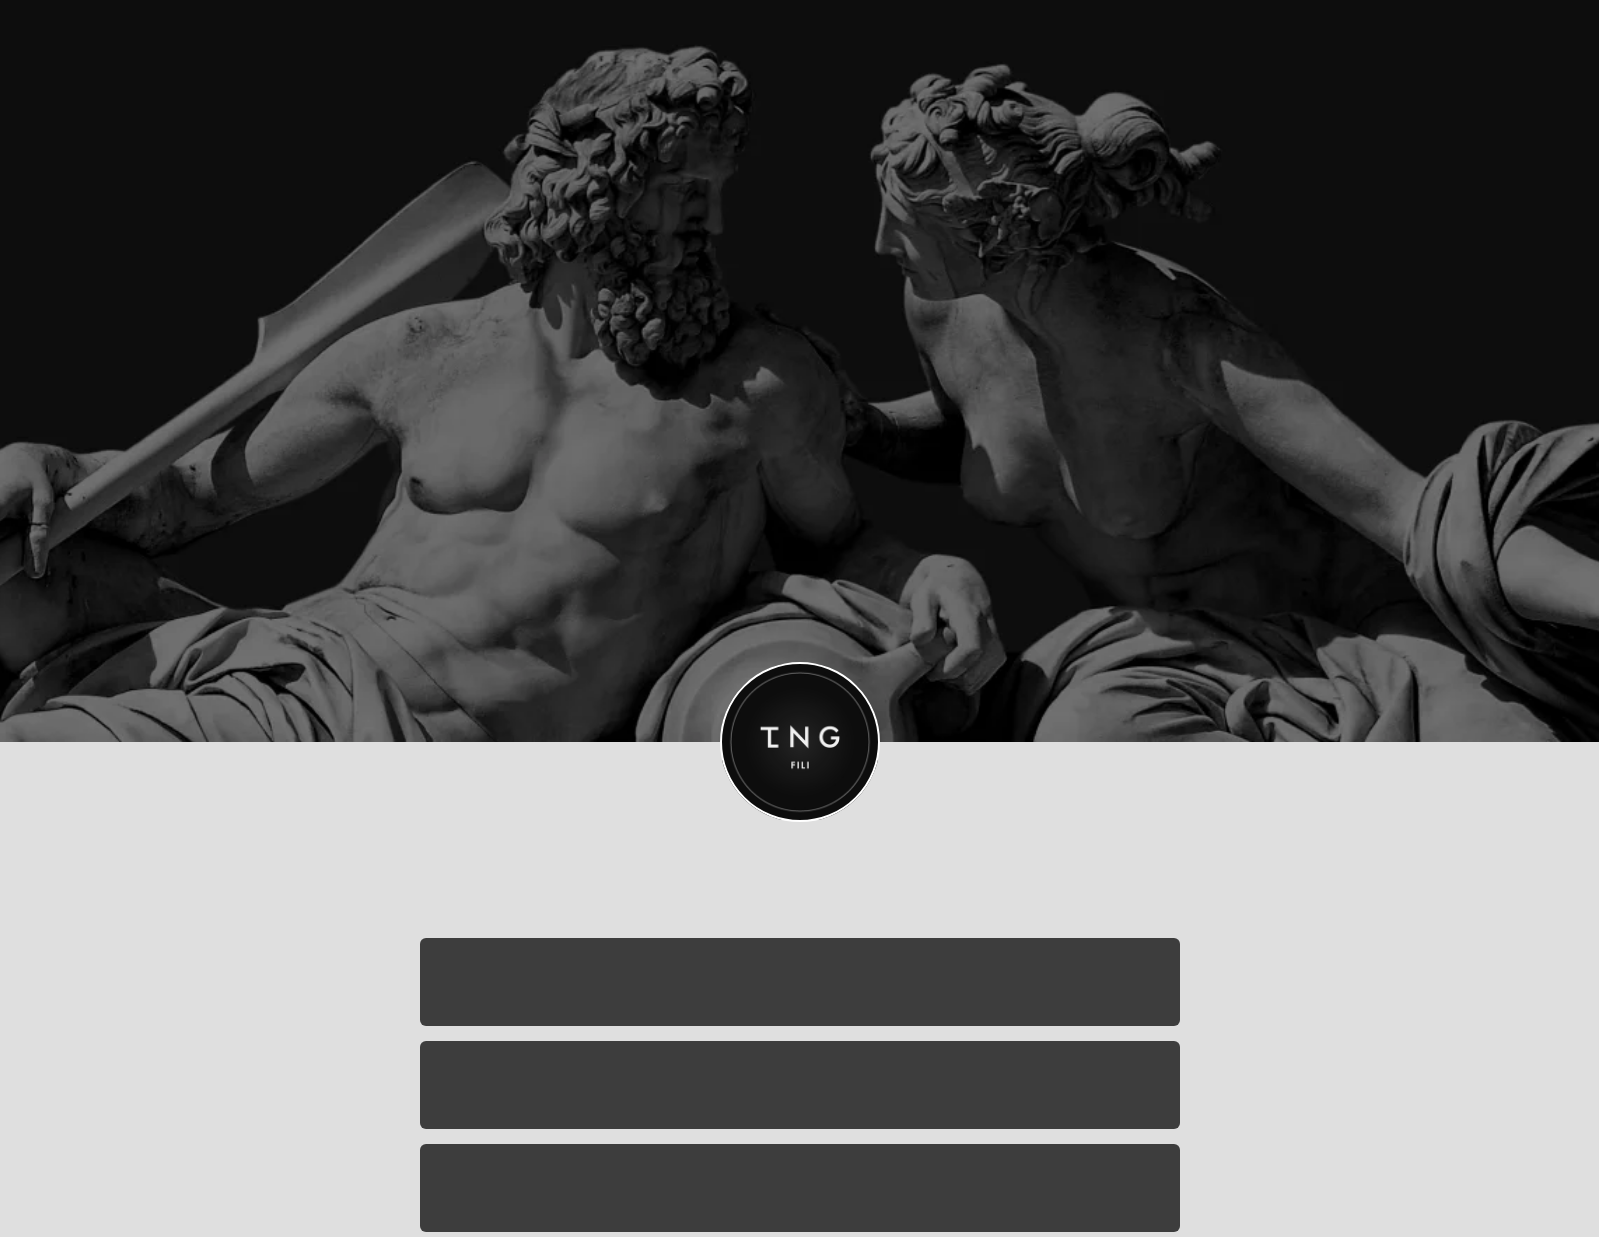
void draw(SkCanvas* canvas) {
  SkPaint paint;
  paint.setAntiAlias(true);
  auto paste = [&](const char* path, float x, float y, float w, float h) {
    auto image = SkImages::DeferredFromEncodedData(SkData::MakeFromFileName(path));
    canvas->drawImageRect(image, SkRect::MakeXYWH(x, y, w, h), SkSamplingOptions());
  };
  canvas->clear(0xffdfdfdf);
  paste("img/1.png", 0, 0, 1599, 742);
  paste("img/2.png", 722, 664, 156, 156);
  paint.setStroke(true);
  paint.setStrokeWidth(2);
  paint.setColor(0xffffffff);
  canvas->drawCircle(800, 742, 79, paint);
  paint.setStroke(false);
  paint.setColor(0xff3d3d3d);
  canvas->drawRoundRect(SkRect::MakeXYWH(420, 938, 760, 88), 6, 6, paint);
  canvas->drawRoundRect(SkRect::MakeXYWH(420, 1041, 760, 88), 6, 6, paint);
  canvas->drawRoundRect(SkRect::MakeXYWH(420, 1144, 760, 88), 6, 6, paint);
}
